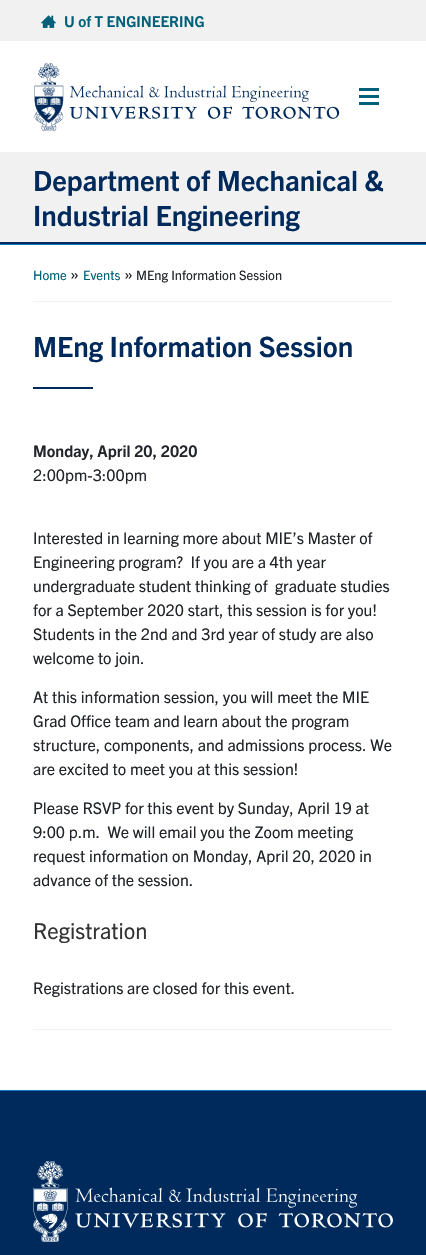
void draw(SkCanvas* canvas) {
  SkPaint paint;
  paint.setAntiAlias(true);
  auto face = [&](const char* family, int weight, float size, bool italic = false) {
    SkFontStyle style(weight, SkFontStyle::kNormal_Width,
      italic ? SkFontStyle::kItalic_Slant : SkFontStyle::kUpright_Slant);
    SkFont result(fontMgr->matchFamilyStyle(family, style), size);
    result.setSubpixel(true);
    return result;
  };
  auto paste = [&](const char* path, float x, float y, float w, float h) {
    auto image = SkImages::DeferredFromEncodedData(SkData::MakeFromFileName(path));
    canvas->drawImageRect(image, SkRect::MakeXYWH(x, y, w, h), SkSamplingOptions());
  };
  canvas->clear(0xffffffff);
  paint.setColor(0xfff1f1f1);
  canvas->drawRect(SkRect::MakeXYWH(0, 0, 426, 41), paint);
  paste("img/1.png", 41, 15, 15, 13);
  paste("img/2.png", 34, 63, 306, 68);
  {
    const struct { float x, y, w, h; SkColor color; } items[] = {
      {359, 95, 20, 3, 0xff00607a},
      {359, 88, 20, 3, 0xff00607a},
      {359, 102, 20, 3, 0xff00607a},
      {0, 152, 426, 90, 0xfff1f1f1},
      {0, 242, 426, 2, 0xff002a5c},
      {0, 244, 426, 1, 0xff167ac6},
      {33, 301, 360, 1, 0xfff1f1f1},
      {33, 387, 60, 2, 0xff002a5c},
      {33, 1029, 360, 1, 0xfff1f1f1},
      {0, 1091, 426, 164, 0xff002a5c},
      {0, 1090, 426, 1, 0xff167ac6},
    };
    for (auto [x, y, w, h, color] : items) {
      paint.setColor(color);
      canvas->drawRect(SkRect::MakeXYWH(x, y, w, h), paint);
    }
  }
  paste("img/3.png", 33, 1161, 360, 81);
  auto f0 = face("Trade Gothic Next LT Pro", 700, 15);
  paint.setColor(0xff00607a);
  canvas->drawString("U of T ENGINEERING", 64, 27, f0, paint);
  auto f1 = face("Trade Gothic Next LT Pro", 700, 28);
  paint.setColor(0xff002a5c);
  canvas->drawString("Department of Mechanical &", 33, 191, f1, paint);
  canvas->drawString("Industrial Engineering", 33, 226, f1, paint);
  auto f2 = face("Trade Gothic Next LT Pro", 400, 13);
  paint.setColor(0xff00607a);
  canvas->drawString("Home", 33, 280, f2, paint);
  auto f3 = face("Trade Gothic Next LT Pro", 400, 16);
  paint.setColor(0xff212529);
  canvas->drawString("»", 70, 280, f3, paint);
  paint.setColor(0xff00607a);
  canvas->drawString("Events", 83, 280, f2, paint);
  paint.setColor(0xff212529);
  canvas->drawString("»", 124, 280, f3, paint);
  canvas->drawString("MEng Information Session", 136, 280, f2, paint);
  paint.setColor(0xff002a5c);
  canvas->drawString("MEng Information Session", 33, 357, f1, paint);
  auto f4 = face("Trade Gothic Next LT Pro", 700, 16);
  paint.setColor(0xff212529);
  canvas->drawString("Monday, April 20, 2020", 33, 457, f4, paint);
  {
    const struct { const char* s; float x, y; } items[] = {
      {"2:00pm-3:00pm", 33, 481},
      {"Interested in learning more about MIE’s Master of", 33, 544},
      {"Engineering program?  If you are a 4th year", 33, 568},
      {"undergraduate student thinking of  graduate studies", 33, 592},
      {"for a September 2020 start, this session is for you!", 33, 616},
      {"Students in the 2nd and 3rd year of study are also", 33, 640},
      {"welcome to join.", 33, 664},
      {"At this information session, you will meet the MIE", 33, 703},
      {"Grad Office team and learn about the program", 33, 727},
      {"structure, components, and admissions process. We", 33, 751},
      {"are excited to meet you at this session!", 33, 775},
      {"Please RSVP for this event by Sunday, April 19 at", 33, 814},
      {"9:00 p.m.  We will email you the Zoom meeting", 33, 838},
      {"request information on Monday, April 20, 2020 in", 33, 862},
      {"advance of the session.", 33, 886},
    };
    for (auto [s, x, y] : items) {
      canvas->drawString(s, x, y, f3, paint);
    }
  }
  auto f5 = face("Trade Gothic Next LT Pro", 400, 22);
  paint.setColor(0xff333333);
  canvas->drawString("Registration", 33, 939, f5, paint);
  paint.setColor(0xff212529);
  canvas->drawString("Registrations are closed for this event.", 33, 994, f3, paint);
}
